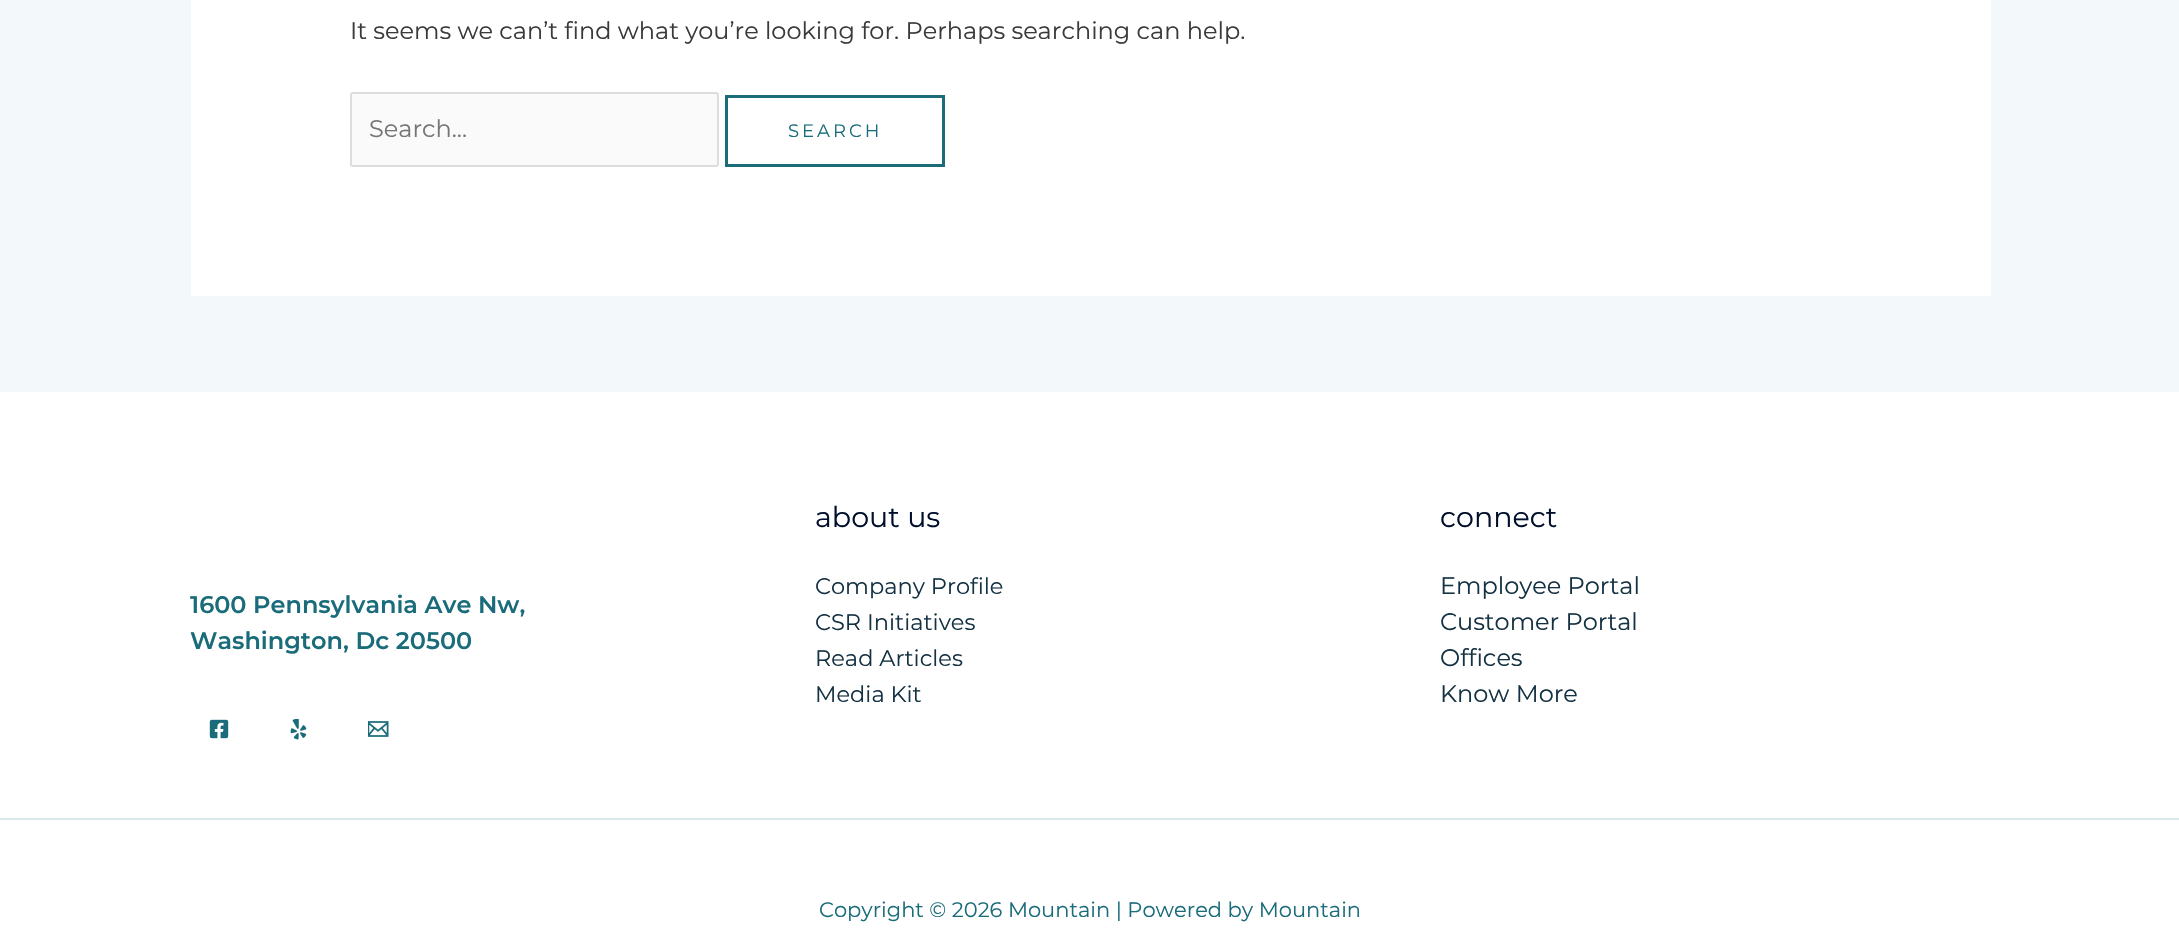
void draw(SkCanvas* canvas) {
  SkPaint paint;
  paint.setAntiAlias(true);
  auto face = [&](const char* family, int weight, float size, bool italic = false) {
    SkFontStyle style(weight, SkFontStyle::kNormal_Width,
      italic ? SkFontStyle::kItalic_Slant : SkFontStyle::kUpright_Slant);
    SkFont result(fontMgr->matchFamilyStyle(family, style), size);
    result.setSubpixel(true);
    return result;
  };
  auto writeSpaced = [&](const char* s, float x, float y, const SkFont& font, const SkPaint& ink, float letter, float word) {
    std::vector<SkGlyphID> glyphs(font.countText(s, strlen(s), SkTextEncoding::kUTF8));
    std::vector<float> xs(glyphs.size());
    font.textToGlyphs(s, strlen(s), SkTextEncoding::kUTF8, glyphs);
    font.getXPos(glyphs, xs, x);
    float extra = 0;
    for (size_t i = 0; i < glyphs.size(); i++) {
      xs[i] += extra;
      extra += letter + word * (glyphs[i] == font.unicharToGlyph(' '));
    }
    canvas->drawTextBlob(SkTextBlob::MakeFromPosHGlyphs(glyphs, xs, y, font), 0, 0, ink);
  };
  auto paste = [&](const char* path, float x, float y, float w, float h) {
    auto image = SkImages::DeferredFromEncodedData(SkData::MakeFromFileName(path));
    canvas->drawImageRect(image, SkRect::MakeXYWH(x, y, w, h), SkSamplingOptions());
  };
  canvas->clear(0xfff3f9fb);
  paint.setColor(0xffffffff);
  canvas->drawRect(SkRect::MakeXYWH(191, 0, 1800, 296), paint);
  paint.setColor(0xfffafafa);
  canvas->drawRoundRect(SkRect::MakeXYWH(351, 93, 367, 73), 2, 2, paint);
  paint.setStroke(true);
  paint.setStrokeWidth(2);
  paint.setColor(0xffdddddd);
  canvas->drawRoundRect(SkRect::MakeXYWH(351, 93, 367, 73), 2, 2, paint);
  paint.setStrokeWidth(3);
  paint.setColor(0xff1a6c7a);
  canvas->drawRect(SkRect::MakeXYWH(726.5f, 96.5f, 217, 69), paint);
  paint.setStroke(false);
  paint.setColor(0xffffffff);
  canvas->drawRect(SkRect::MakeXYWH(0, 392, 2179, 558), paint);
  paste("img/1.png", 209, 719, 20, 20);
  paste("img/2.png", 290, 719, 17, 21);
  paste("img/3.png", 368, 721, 21, 16);
  paint.setColor(0xffdbe8eb);
  canvas->drawRect(SkRect::MakeXYWH(0, 818, 2179, 2), paint);
  auto f0 = face("Montserrat", 400, 24);
  paint.setColor(0xff3a3a3a);
  canvas->drawString("It seems we can’t find what you’re looking for. Perhaps searching can help.", 350, 39, f0, paint);
  paint.setColor(0xff757575);
  canvas->drawString("Search...", 369, 137, f0, paint);
  auto f1 = face("Montserrat", 400, 18);
  paint.setColor(0xff1a6c7a);
  writeSpaced("SEARCH", 788, 137, f1, paint, 3, 0);
  auto f2 = face("Montserrat", 600, 24);
  canvas->drawString("1600 Pennsylvania Ave Nw,", 190, 613, f2, paint);
  canvas->drawString("Washington, Dc 20500", 190, 649, f2, paint);
  auto f3 = face("Montserrat", 400, 28.5f);
  paint.setColor(0xff000f2b);
  canvas->drawString("about us", 815, 527, f3, paint);
  auto f4 = face("Montserrat", 400, 22.5f);
  paint.setColor(0xff153243);
  {
    const struct { const char* s; float x, y; } items[] = {
      {"Company Profile", 815, 594},
      {"CSR Initiatives", 815, 630},
      {"Read Articles", 815, 666},
      {"Media Kit", 815, 702},
    };
    for (auto [s, x, y] : items) {
      canvas->drawString(s, x, y, f4, paint);
    }
  }
  paint.setColor(0xff000f2b);
  canvas->drawString("connect", 1440, 527, f3, paint);
  paint.setColor(0xff153243);
  {
    const struct { const char* s; float x, y; } items[] = {
      {"Employee Portal", 1440, 594},
      {"Customer Portal", 1440, 630},
      {"Offices", 1440, 666},
      {"Know More", 1440, 702},
    };
    for (auto [s, x, y] : items) {
      canvas->drawString(s, x, y, f0, paint);
    }
  }
  auto f5 = face("Montserrat", 400, 21);
  paint.setColor(0xff1a6c7a);
  canvas->drawString("Copyright © 2026 Mountain | Powered by Mountain", 819, 917, f5, paint);
}
